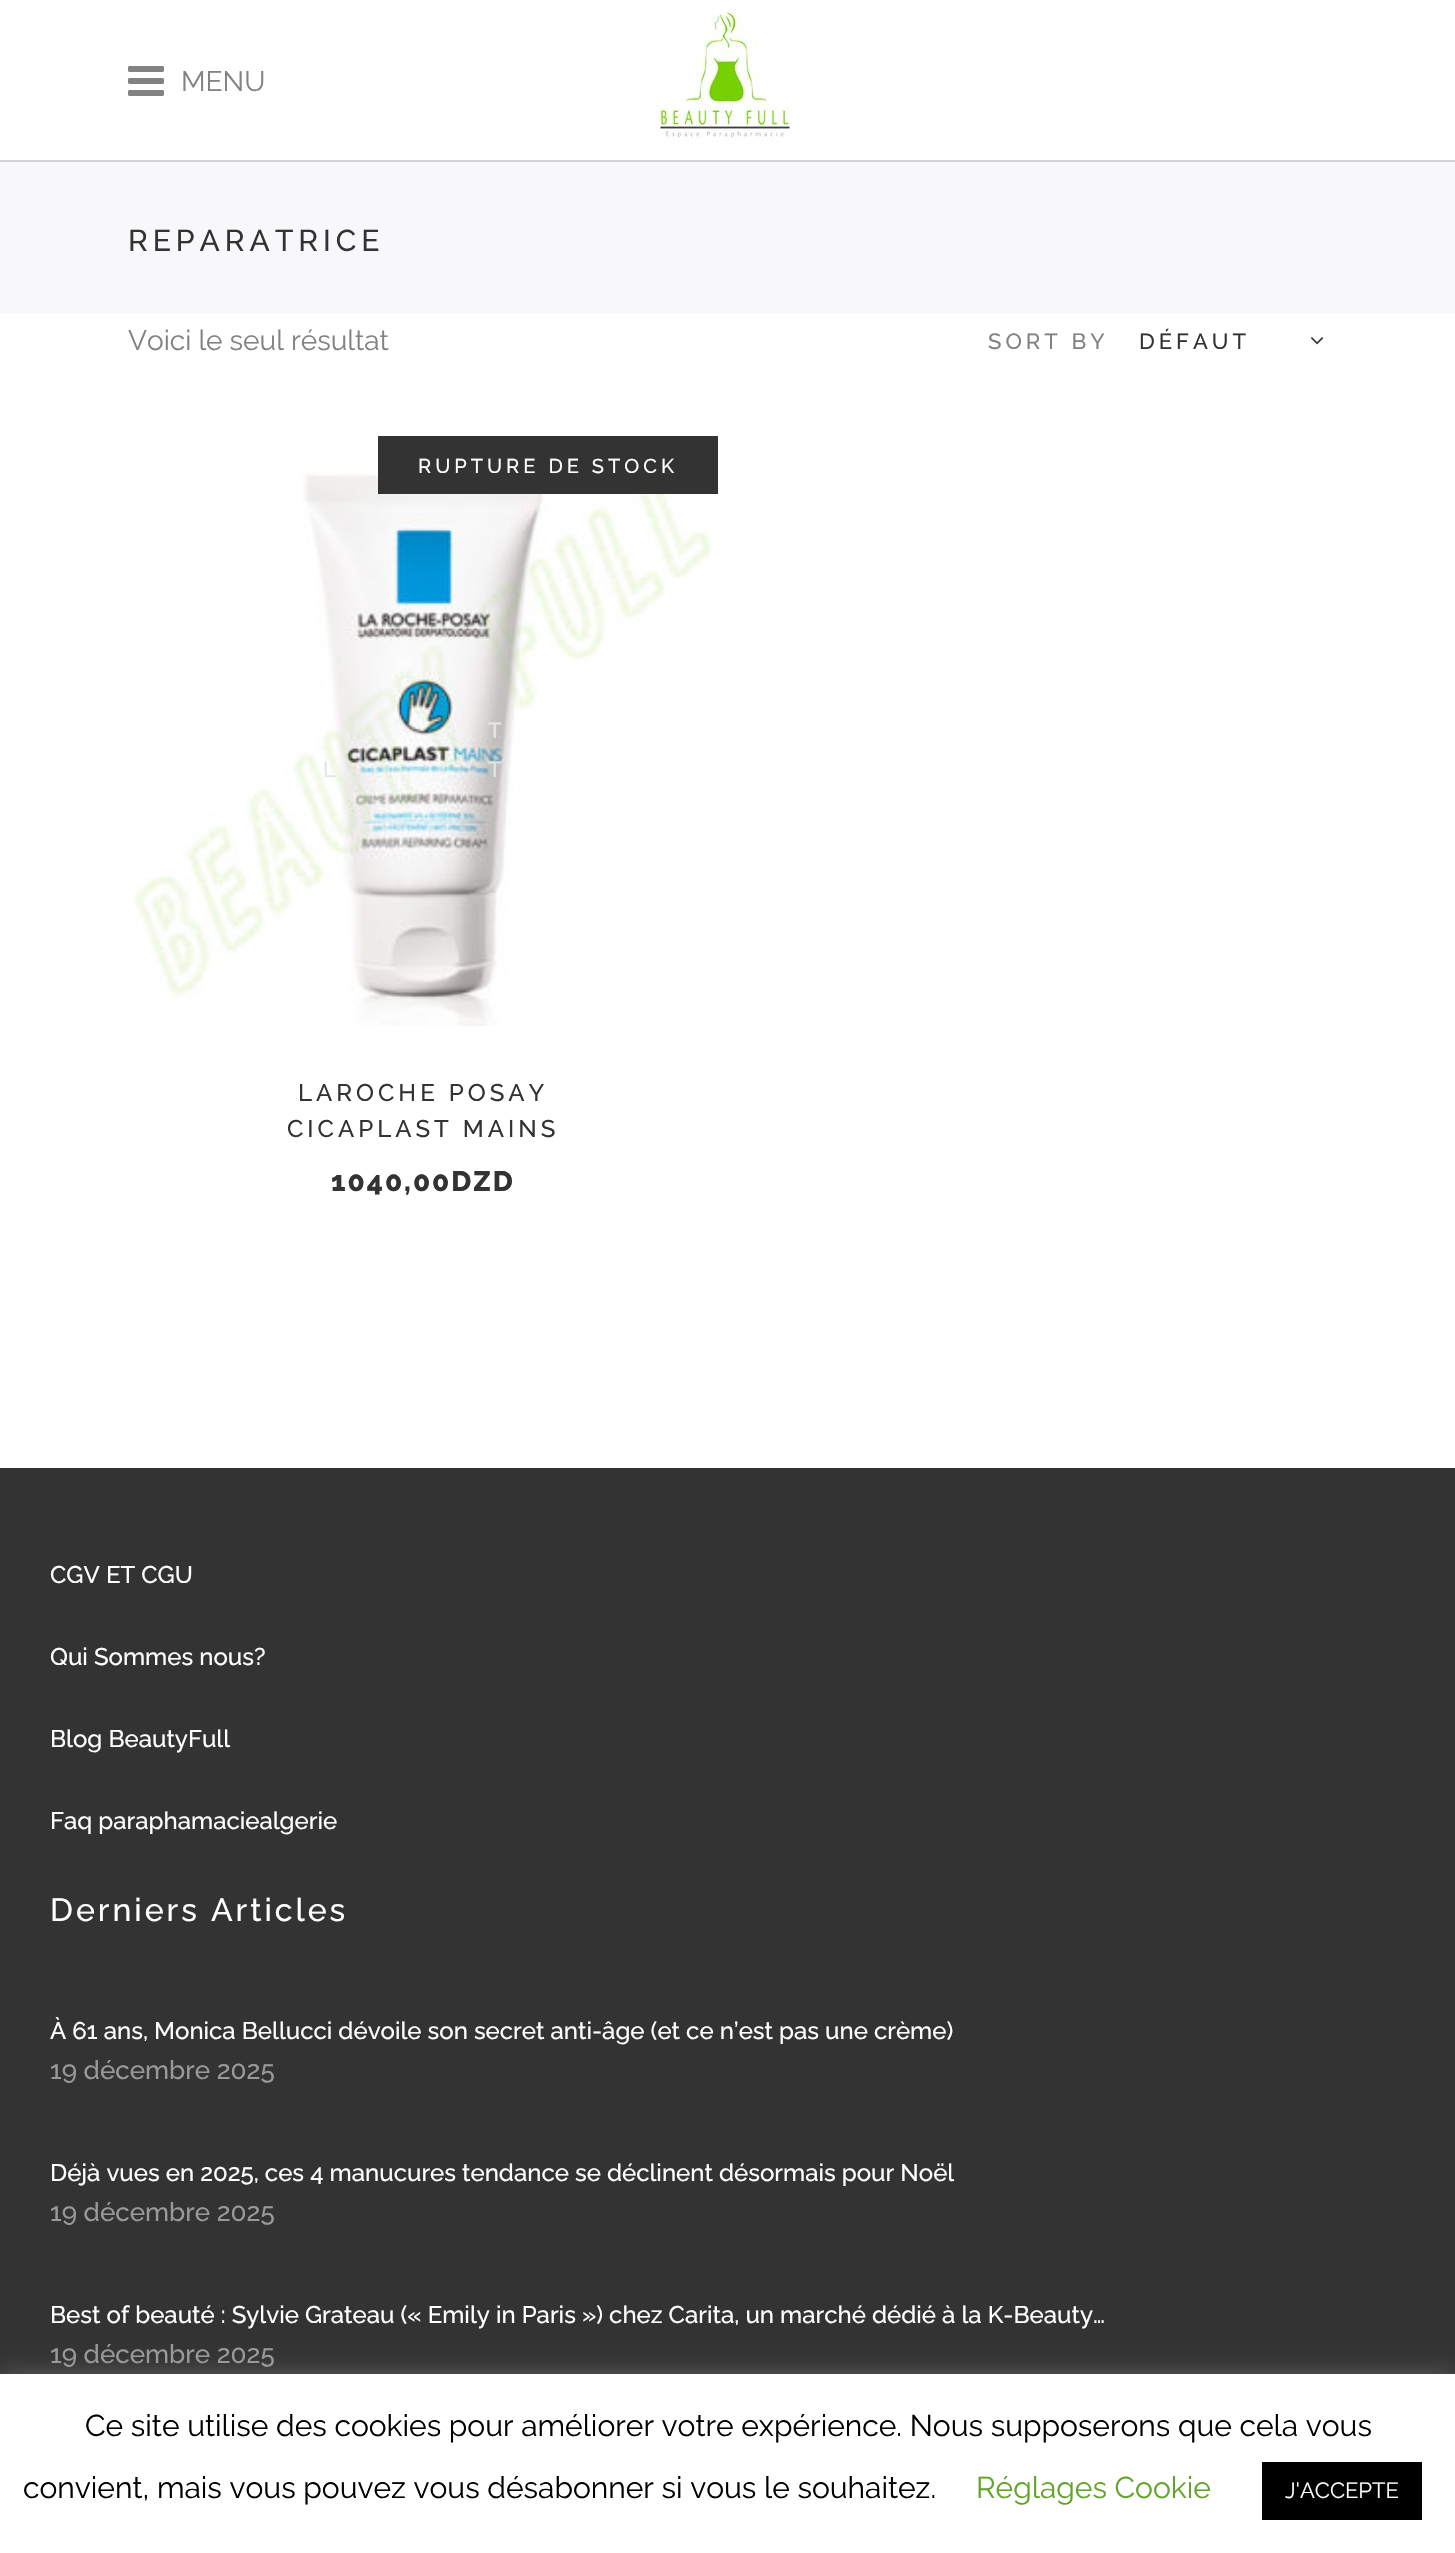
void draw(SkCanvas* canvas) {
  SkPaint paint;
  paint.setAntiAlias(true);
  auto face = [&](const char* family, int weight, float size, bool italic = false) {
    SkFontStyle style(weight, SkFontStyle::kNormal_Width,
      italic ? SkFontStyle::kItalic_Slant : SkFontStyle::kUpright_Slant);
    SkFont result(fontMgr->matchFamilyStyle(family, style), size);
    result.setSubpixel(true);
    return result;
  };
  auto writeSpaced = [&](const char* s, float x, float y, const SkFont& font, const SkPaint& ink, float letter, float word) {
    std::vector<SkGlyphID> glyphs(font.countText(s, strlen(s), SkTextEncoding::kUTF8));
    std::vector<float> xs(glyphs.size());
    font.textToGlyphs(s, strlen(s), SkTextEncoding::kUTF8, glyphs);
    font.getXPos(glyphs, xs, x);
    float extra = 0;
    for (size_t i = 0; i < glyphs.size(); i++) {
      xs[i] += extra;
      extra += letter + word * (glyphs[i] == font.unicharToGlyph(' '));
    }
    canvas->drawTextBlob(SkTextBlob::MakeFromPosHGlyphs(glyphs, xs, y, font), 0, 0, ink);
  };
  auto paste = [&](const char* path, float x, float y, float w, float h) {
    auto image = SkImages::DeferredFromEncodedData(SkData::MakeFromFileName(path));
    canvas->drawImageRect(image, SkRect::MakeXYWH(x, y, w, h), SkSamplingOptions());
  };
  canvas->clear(0xffffffff);
  paint.setColor(0xffd4d4d4);
  canvas->drawRect(SkRect::MakeXYWH(0, 160, 1455, 2), paint);
  paste("img/1.png", 128, 66, 36, 30);
  paste("img/2.png", 648, 0, 144, 144);
  paint.setColor(0xfff8f8fa);
  canvas->drawRect(SkRect::MakeXYWH(0, 162, 1455, 152), paint);
  paste("img/3.png", 1311, 337, 13, 8);
  paste("img/4.png", 133, 467, 578, 559);
  paint.setColor(0xff333333);
  canvas->drawRect(SkRect::MakeXYWH(378, 436, 340, 58), paint);
  canvas->drawRect(SkRect::MakeXYWH(0, 1468, 1455, 906), paint);
  paint.setColor(0x4dacabab);
  paint.setMaskFilter(SkMaskFilter::MakeBlur(kNormal_SkBlurStyle, 10));
  canvas->drawRect(SkRect::MakeXYWH(0, 2372, 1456, 180), paint);
  paint.setMaskFilter(nullptr);
  paint.setColor(0xffffffff);
  canvas->drawRect(SkRect::MakeXYWH(0, 2374, 1455, 179), paint);
  paint.setColor(0xff000000);
  canvas->drawRect(SkRect::MakeXYWH(1262, 2462, 160, 58), paint);
  auto f0 = face("Raleway", 400, 28);
  paint.setColor(0xff828282);
  canvas->drawString("MENU", 181, 91, f0, paint);
  auto f1 = face("Raleway", 500, 30);
  paint.setColor(0xff333333);
  writeSpaced("REPARATRICE", 128, 251, f1, paint, 5, 0);
  paint.setColor(0xff828282);
  canvas->drawString("Voici le seul résultat", 128, 350, f0, paint);
  auto f2 = face("Raleway", 500, 22);
  writeSpaced("SORT BY", 988, 349, f2, paint, 4, 0);
  paint.setColor(0xff333333);
  writeSpaced("DÉFAUT", 1139, 349, f2, paint, 4, 0);
  auto f3 = face("Raleway", 500, 20);
  paint.setColor(0xffffffff);
  writeSpaced("RUPTURE DE STOCK", 418, 473, f3, paint, 4, 0);
  paint.setColor(0xffe7e8e4);
  writeSpaced("T", 488, 738, f2, paint, 4, 0);
  paint.setColor(0xffdfe8e8);
  writeSpaced("L", 323, 777, f2, paint, 4, 0);
  writeSpaced("T", 488, 777, f2, paint, 4, 0);
  auto f4 = face("Raleway", 500, 24);
  paint.setColor(0xff333333);
  writeSpaced("LAROCHE POSAY", 298, 1101, f4, paint, 4, 0);
  writeSpaced("CICAPLAST MAINS", 287, 1137, f4, paint, 4, 0);
  auto f5 = face("Raleway", 800, 28);
  writeSpaced("1040,00DZD", 331, 1191, f5, paint, 2, 0);
  paint.setColor(0xffffffff);
  {
    const struct { const char* s; float x, y; } items[] = {
      {"CGV ET CGU", 50, 1583},
      {"Qui Sommes nous?", 50, 1665},
      {"Blog BeautyFull", 50, 1747},
      {"Faq paraphamaciealgerie", 50, 1829},
    };
    for (auto [s, x, y] : items) {
      canvas->drawString(s, x, y, f4, paint);
    }
  }
  auto f6 = face("Raleway", 500, 32);
  writeSpaced("Derniers Articles", 50, 1921, f6, paint, 3, 0);
  canvas->drawString("À 61 ans, Monica Bellucci dévoile son secret anti-âge (et ce n’est pas une crème)", 50, 2039, f4, paint);
  auto f7 = face("Raleway", 500, 26);
  paint.setColor(0xff999999);
  canvas->drawString("19 décembre 2025", 50, 2079, f7, paint);
  paint.setColor(0xffffffff);
  canvas->drawString("Déjà vues en 2025, ces 4 manucures tendance se déclinent désormais pour Noël", 50, 2181, f4, paint);
  paint.setColor(0xff999999);
  canvas->drawString("19 décembre 2025", 50, 2221, f7, paint);
  paint.setColor(0xffffffff);
  canvas->drawString("Best of beauté : Sylvie Grateau (« Emily in Paris ») chez Carita, un marché dédié à la K-Beauty…", 50, 2323, f4, paint);
  paint.setColor(0xff999999);
  canvas->drawString("19 décembre 2025", 50, 2363, f7, paint);
  auto f8 = face("Raleway", 400, 30);
  paint.setColor(0xff000000);
  canvas->drawString("Ce site utilise des cookies pour améliorer votre expérience. Nous supposerons que cela vous", 85, 2436, f8, paint);
  canvas->drawString("convient, mais vous pouvez vous désabonner si vous le souhaitez.", 23, 2498, f8, paint);
  paint.setColor(0xff62a329);
  canvas->drawString("Réglages Cookie", 976, 2498, f8, paint);
  auto f9 = face("Raleway", 400, 22);
  paint.setColor(0xffffffff);
  canvas->drawString("J'ACCEPTE", 1285, 2498, f9, paint);
}
